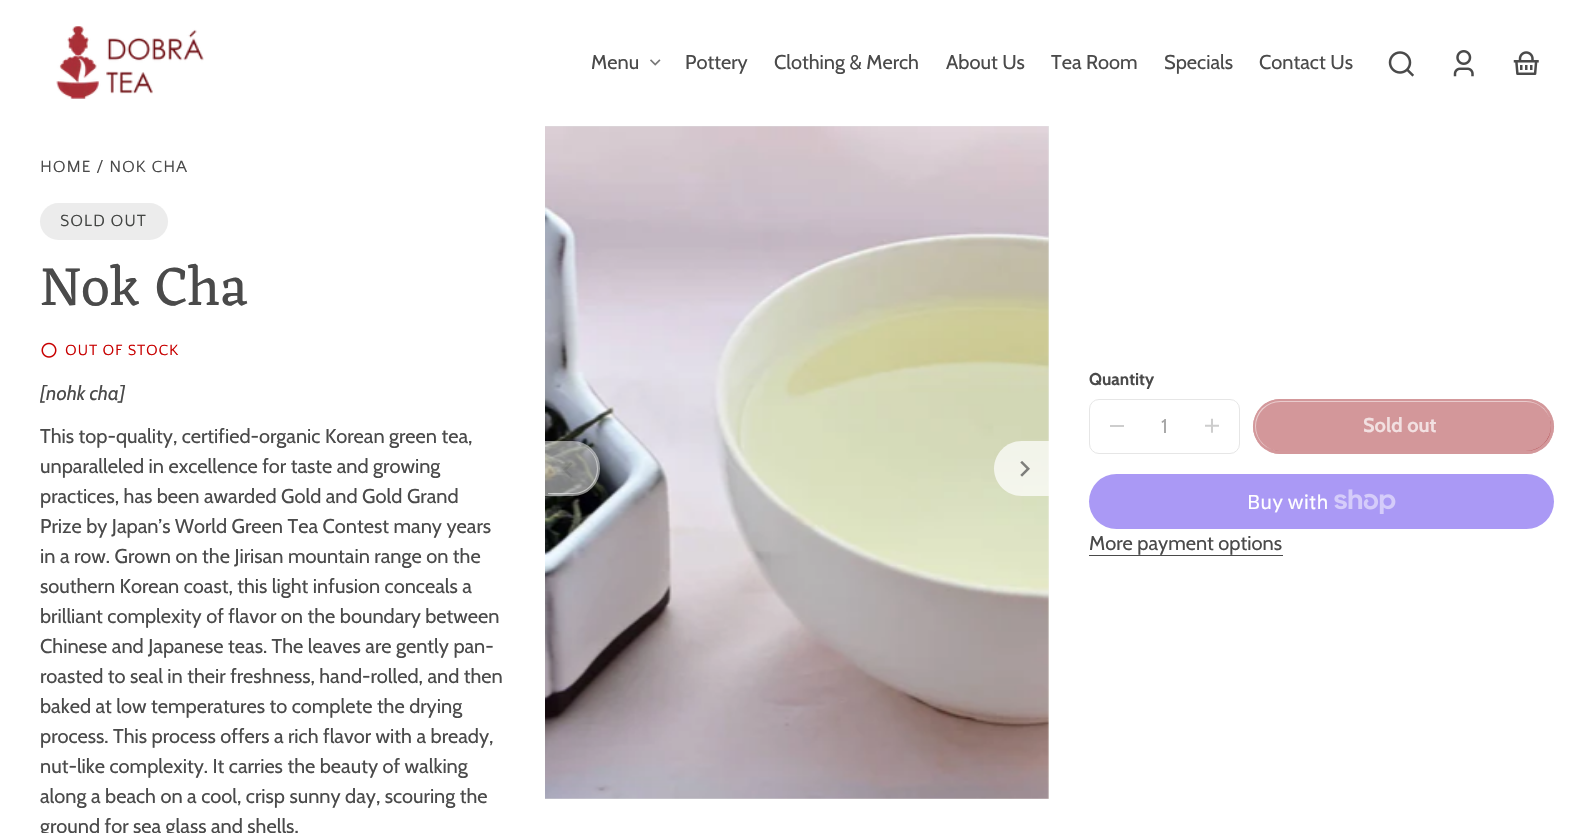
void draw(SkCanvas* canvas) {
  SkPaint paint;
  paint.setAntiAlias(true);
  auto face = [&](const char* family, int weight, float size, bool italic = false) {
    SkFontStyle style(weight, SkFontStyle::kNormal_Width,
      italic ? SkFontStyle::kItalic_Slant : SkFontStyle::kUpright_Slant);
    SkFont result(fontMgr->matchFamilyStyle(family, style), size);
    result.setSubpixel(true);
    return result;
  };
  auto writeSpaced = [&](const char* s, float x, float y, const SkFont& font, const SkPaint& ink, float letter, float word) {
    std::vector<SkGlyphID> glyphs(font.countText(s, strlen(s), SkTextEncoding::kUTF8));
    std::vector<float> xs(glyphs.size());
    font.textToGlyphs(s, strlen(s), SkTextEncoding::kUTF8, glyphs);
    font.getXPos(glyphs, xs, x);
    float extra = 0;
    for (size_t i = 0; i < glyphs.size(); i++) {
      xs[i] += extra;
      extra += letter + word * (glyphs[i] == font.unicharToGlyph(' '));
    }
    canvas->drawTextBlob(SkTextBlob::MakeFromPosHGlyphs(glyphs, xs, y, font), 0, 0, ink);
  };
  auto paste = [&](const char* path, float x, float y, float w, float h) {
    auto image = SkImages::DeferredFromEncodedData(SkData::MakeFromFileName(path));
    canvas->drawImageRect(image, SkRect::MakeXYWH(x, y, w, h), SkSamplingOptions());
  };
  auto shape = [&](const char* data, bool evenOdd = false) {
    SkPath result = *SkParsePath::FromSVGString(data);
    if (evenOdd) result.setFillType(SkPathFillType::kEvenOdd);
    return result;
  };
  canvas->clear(0xffffffff);
  paste("img/1.png", 56, 26, 148, 73);
  paste("img/2.png", 650, 59, 11, 7);
  paste("img/3.png", 1388, 51, 26, 26);
  paste("img/4.png", 1453, 50, 21, 27);
  paste("img/5.png", 1513, 51, 26, 24);
  paint.setColor(0xffececec);
  canvas->drawRoundRect(SkRect::MakeXYWH(40, 203, 128, 37), 18.5f, 18.5f, paint);
  paste("img/6.png", 41, 342, 16, 16);
  {
    const SkColor colors[] = {0xfff4f2ea, 0xffe0e8ea};
    const float stops[] = {0.14f, 1};
    const SkPoint ends[] = {{971, 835}, {623, 90}};
    paint.setShader(SkGradientShader::MakeLinear(ends, colors, stops, 2, SkTileMode::kClamp));
    paint.setAlpha(255);
  }
  canvas->drawRect(SkRect::MakeXYWH(545, 126, 504, 673), paint);
  paste("img/7.png", 545, 126, 504, 673);
  paint.setShader(nullptr);
  paint.setColor(0x80ffffff);
  canvas->drawPath(shape("M548 444H573C587 444 598 455 598 469C598 483 587 494 573 494H548Z"), paint);
  paint.setStroke(true);
  paint.setStrokeWidth(3);
  canvas->drawPath(shape("M546.5 442.5H572.5C587 442.5 598.5 454 598.5 468.5C598.5 483 587 494.5 572.5 494.5H546.5Z"), paint);
  paste("img/8.png", 563, 462, 10, 16);
  paint.setStroke(false);
  paint.setColor(0xb3ffffff);
  canvas->drawPath(shape("M1021.5 441H1049V496H1021.5C1006.5 496 994 483.5 994 468.5C994 453.5 1006.5 441 1021.5 441Z"), paint);
  paste("img/9.png", 1020, 461, 10, 16);
  paint.setStroke(true);
  paint.setStrokeWidth(1);
  paint.setColor(0xffe6e6e6);
  canvas->drawRoundRect(SkRect::MakeXYWH(1089.5f, 399.5f, 150, 54), 9.5f, 9.5f, paint);
  paint.setStroke(false);
  {
    const struct { float x, y, w, h; SkColor color; } items[] = {
      {1093, 401, 1, 1, 0x33ffffff},
      {1110, 425, 14, 2, 0xffcdcdcd},
      {1235, 401, 1, 1, 0x33ffffff},
    };
    for (auto [x, y, w, h, color] : items) {
      paint.setColor(color);
      canvas->drawRect(SkRect::MakeXYWH(x, y, w, h), paint);
    }
  }
  paste("img/10.png", 1205, 418, 14, 15);
  paint.setColor(0xffa72f35);
  canvas->drawRoundRect(SkRect::MakeXYWH(1253, 399, 301, 55), 27.5f, 27.5f, paint);
  paint.setColor(0xffd3979a);
  canvas->drawRoundRect(SkRect::MakeXYWH(1255, 401, 296, 50), 25, 25, paint);
  paint.setStroke(true);
  paint.setStrokeWidth(3);
  paint.setColor(0x80ffffff);
  canvas->drawRoundRect(SkRect::MakeXYWH(1254.5f, 400.5f, 298, 52), 26, 26, paint);
  paint.setStroke(false);
  paint.setColor(0xffaa99f5);
  canvas->drawRoundRect(SkRect::MakeXYWH(1089, 474, 465, 55), 27.5f, 27.5f, paint);
  paste("img/11.png", 1334, 489, 62, 25);
  paint.setColor(0xff4a4a4a);
  canvas->drawRect(SkRect::MakeXYWH(1089, 555, 194, 1), paint);
  auto f0 = face("Cabin", 400, 20);
  {
    const struct { const char* s; float x, y; } items[] = {
      {"Menu", 591, 69},
      {"Pottery", 685, 69},
      {"Clothing & Merch", 774, 69},
      {"About Us", 946, 69},
      {"Tea Room", 1051, 69},
      {"Specials", 1164, 69},
      {"Contact Us", 1259, 69},
    };
    for (auto [s, x, y] : items) {
      canvas->drawString(s, x, y, f0, paint);
    }
  }
  auto f1 = face("Quattrocento Sans", 400, 17);
  writeSpaced("HOME / NOK CHA", 40, 172, f1, paint, 0.8f, 0);
  paint.setColor(0xff434543);
  writeSpaced("SOLD OUT", 60, 226, f1, paint, 0.8f, 0);
  auto f2 = face("Eczar", 400, 56);
  paint.setColor(0xff4a4a4a);
  canvas->drawString("Nok Cha", 40, 305, f2, paint);
  auto f3 = face("Quattrocento Sans", 400, 15.5f);
  paint.setColor(0xffc80000);
  writeSpaced("OUT OF STOCK", 65, 355, f3, paint, 0.75f, 0);
  auto f4 = face("Cabin", 400, 20, true);
  paint.setColor(0xff4a4a4a);
  canvas->drawString("[nohk cha]", 40, 400, f4, paint);
  {
    const struct { const char* s; float x, y; } items[] = {
      {"This top-quality, certified-organic Korean green tea,", 40, 443},
      {"unparalleled in excellence for taste and growing", 40, 473},
      {"practices, has been awarded Gold and Gold Grand", 40, 503},
      {"Prize by Japan’s World Green Tea Contest many years", 40, 533},
      {"in a row. Grown on the Jirisan mountain range on the", 40, 563},
      {"southern Korean coast, this light infusion conceals a", 40, 593},
      {"brilliant complexity of flavor on the boundary between", 40, 623},
      {"Chinese and Japanese teas. The leaves are gently pan-", 40, 653},
      {"roasted to seal in their freshness, hand-rolled, and then", 40, 683},
      {"baked at low temperatures to complete the drying", 40, 713},
      {"process. This process offers a rich flavor with a bready,", 40, 743},
      {"nut-like complexity. It carries the beauty of walking", 40, 773},
      {"along a beach on a cool, crisp sunny day, scouring the", 40, 803},
      {"ground for sea glass and shells.", 40, 833},
    };
    for (auto [s, x, y] : items) {
      canvas->drawString(s, x, y, f0, paint);
    }
  }
  auto f5 = face("Cabin", 700, 17);
  canvas->drawString("Quantity", 1089, 385, f5, paint);
  paint.setColor(0xffa5a5a5);
  canvas->drawString("1", 1161, 433, f0, paint);
  auto f6 = face("Cabin", 700, 20);
  paint.setColor(0xfff2e0e1);
  canvas->drawString("Sold out", 1363, 432, f6, paint);
  auto f7 = face("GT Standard", 400, 20);
  paint.setColor(0xffffffff);
  canvas->drawString("Buy with", 1247, 509, f7, paint);
  paint.setColor(0xff4a4a4a);
  canvas->drawString("More payment options", 1089, 550, f0, paint);
}
